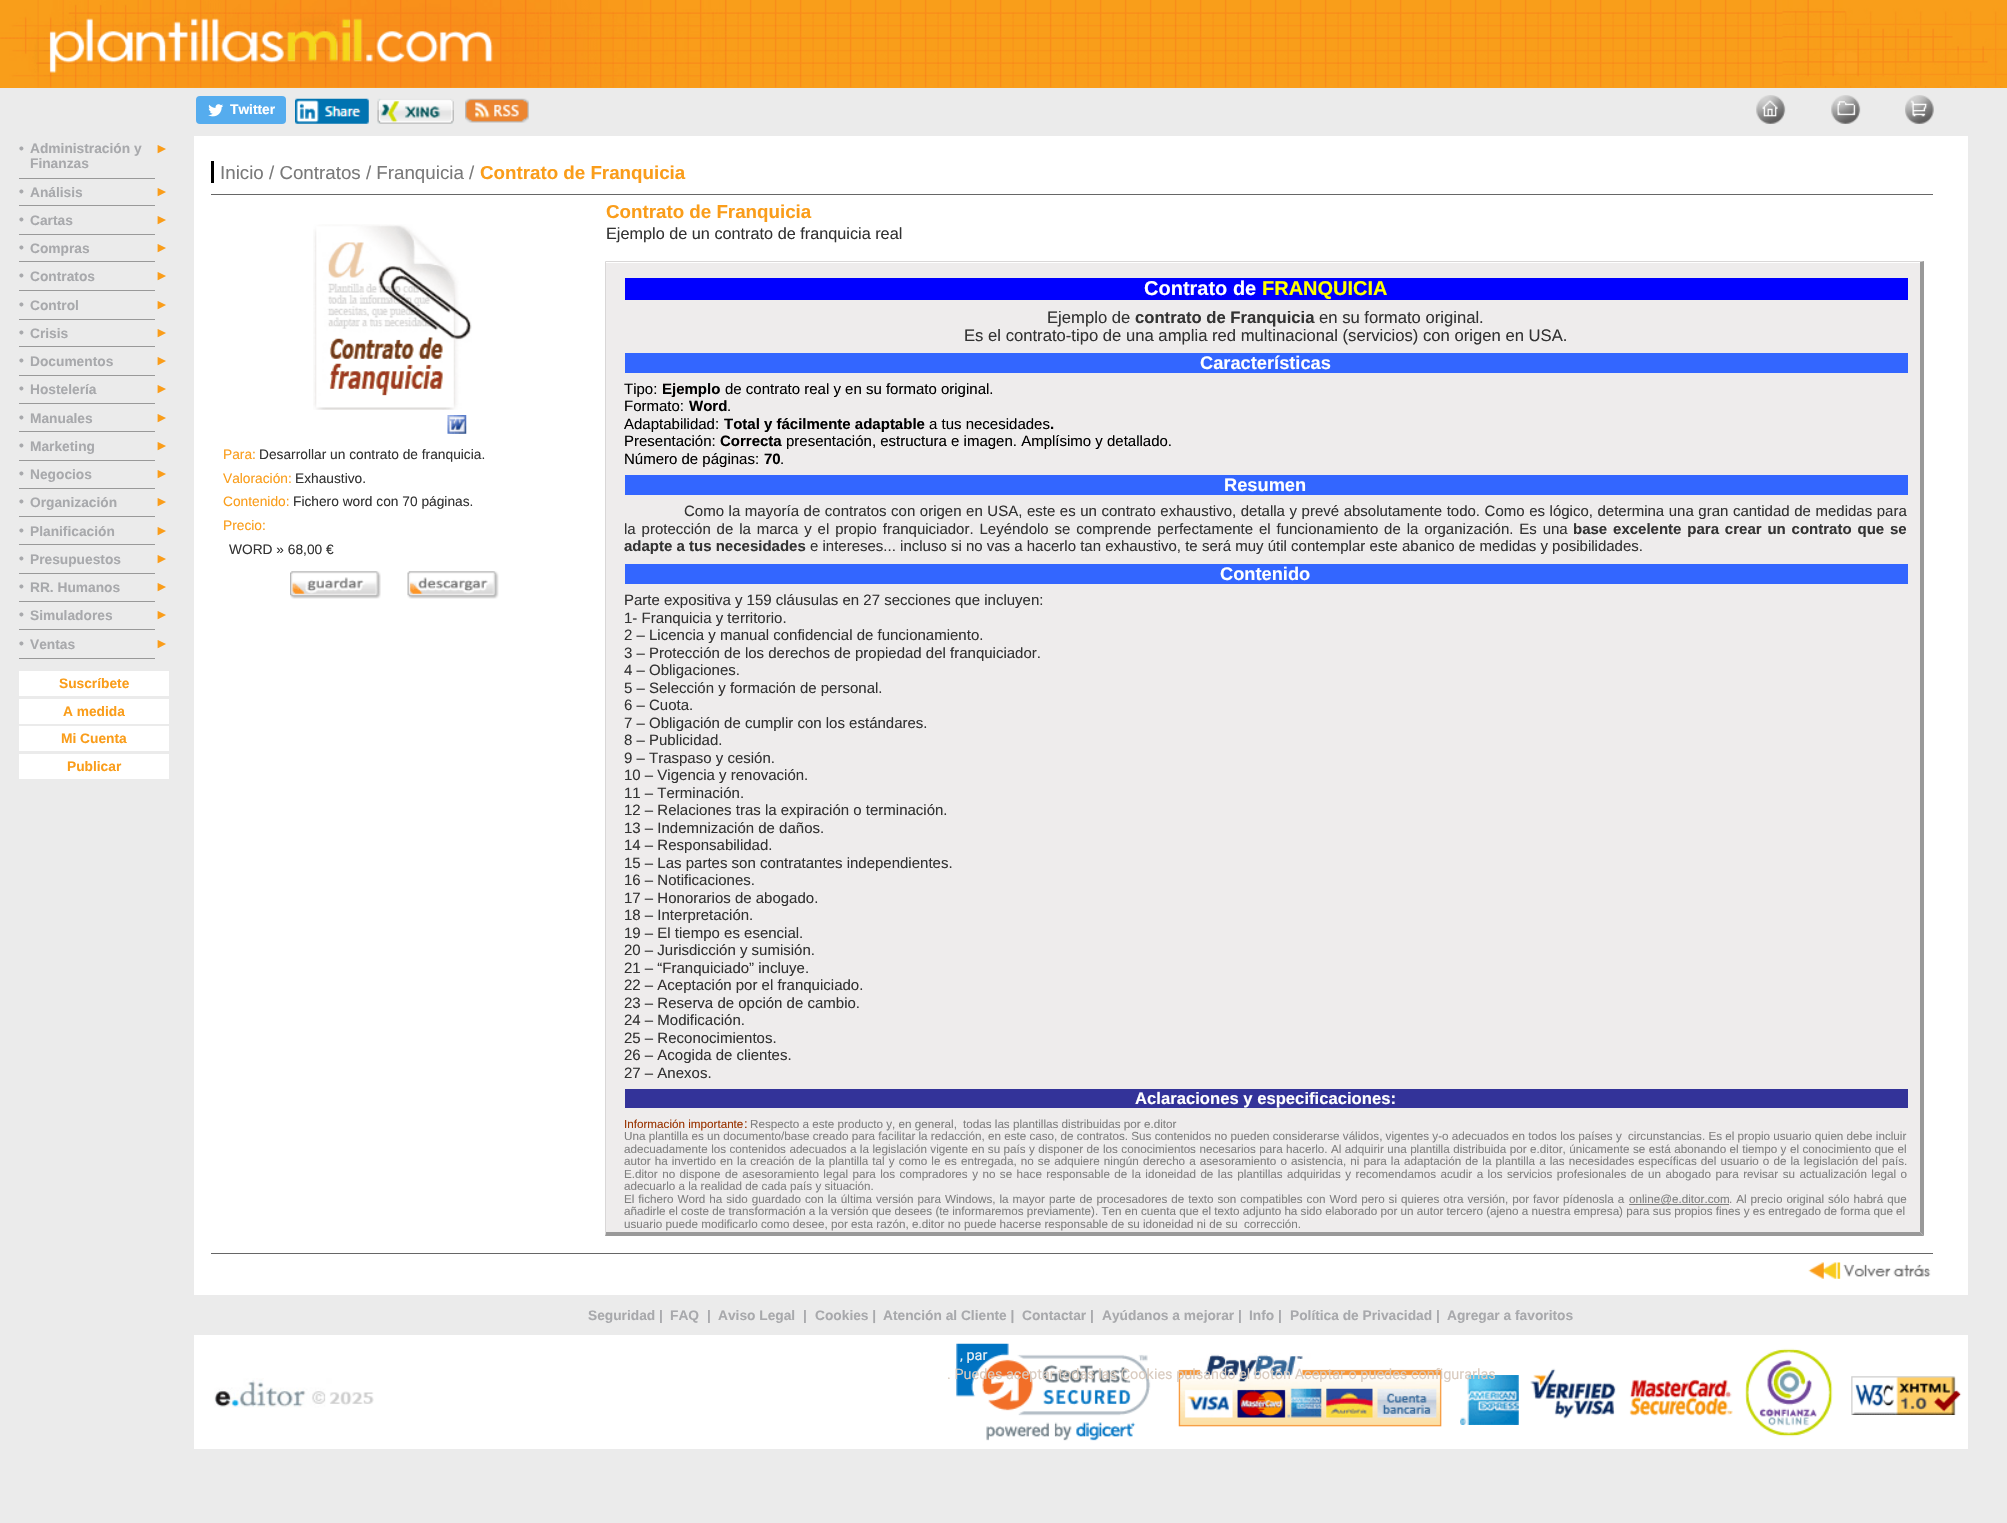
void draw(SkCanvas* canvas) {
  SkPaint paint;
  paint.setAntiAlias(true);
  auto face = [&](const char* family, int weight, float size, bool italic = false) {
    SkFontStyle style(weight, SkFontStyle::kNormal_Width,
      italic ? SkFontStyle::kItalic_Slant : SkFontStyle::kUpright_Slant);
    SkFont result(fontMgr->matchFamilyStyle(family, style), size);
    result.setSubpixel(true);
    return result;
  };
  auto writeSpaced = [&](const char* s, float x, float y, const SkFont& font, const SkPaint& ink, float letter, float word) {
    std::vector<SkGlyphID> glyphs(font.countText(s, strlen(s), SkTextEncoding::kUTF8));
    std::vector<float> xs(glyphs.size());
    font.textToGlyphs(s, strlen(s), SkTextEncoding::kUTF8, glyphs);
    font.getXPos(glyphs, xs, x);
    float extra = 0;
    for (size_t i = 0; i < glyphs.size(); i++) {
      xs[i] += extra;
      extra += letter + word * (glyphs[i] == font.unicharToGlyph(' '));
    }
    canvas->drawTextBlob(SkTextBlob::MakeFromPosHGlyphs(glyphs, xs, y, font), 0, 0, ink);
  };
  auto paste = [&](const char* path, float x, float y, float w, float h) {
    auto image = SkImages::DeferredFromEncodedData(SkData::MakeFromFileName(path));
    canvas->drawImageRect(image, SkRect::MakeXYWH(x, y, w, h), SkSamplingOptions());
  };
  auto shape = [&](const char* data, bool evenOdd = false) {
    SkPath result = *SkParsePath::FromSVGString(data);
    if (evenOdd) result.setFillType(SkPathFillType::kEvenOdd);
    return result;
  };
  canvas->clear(0xffebebeb);
  paint.setColor(0xfff99e1a);
  canvas->drawRect(SkRect::MakeXYWH(0, 87, 2007, 1), paint);
  paste("img/1.png", 0, 0, 2007, 88);
  paste("img/2.png", 0, 0, 727, 88);
  paste("img/3.png", 49, 18, 444, 55);
  paste("img/4.png", 1782, 0, 225, 87);
  paint.setColor(0xff55acee);
  canvas->drawRoundRect(SkRect::MakeXYWH(196, 96, 90, 28), 4, 4, paint);
  paste("img/5.png", 208, 104, 16, 13);
  paste("img/6.png", 295, 98, 74, 26);
  paste("img/7.png", 377, 98, 77, 26);
  paste("img/8.png", 465, 98, 64, 25);
  paste("img/9.png", 1756, 95, 30, 29);
  paste("img/10.png", 1831, 95, 30, 29);
  paste("img/11.png", 1905, 95, 29, 29);
  {
    const struct { float x, y, w, h; SkColor color; } items[] = {
      {19, 178, 136, 1, 0xff999999},
      {19, 205, 136, 1, 0xff999999},
      {19, 234, 136, 1, 0xff999999},
      {19, 261, 136, 1, 0xff999999},
      {19, 290, 136, 1, 0xff999999},
      {19, 319, 136, 1, 0xff999999},
      {19, 346, 136, 1, 0xff999999},
      {19, 375, 136, 1, 0xff999999},
      {19, 403, 136, 1, 0xff999999},
      {19, 431, 136, 1, 0xff999999},
      {19, 460, 136, 1, 0xff999999},
      {19, 488, 136, 1, 0xff999999},
      {19, 516, 136, 1, 0xff999999},
      {19, 544, 136, 1, 0xff999999},
      {19, 573, 136, 1, 0xff999999},
      {19, 601, 136, 1, 0xff999999},
      {19, 629, 136, 1, 0xff999999},
      {19, 658, 136, 1, 0xff999999},
      {19, 671, 150, 25, 0xffffffff},
      {19, 699, 150, 25, 0xffffffff},
      {19, 726, 150, 25, 0xffffffff},
      {19, 754, 150, 25, 0xffffffff},
      {194, 136, 1774, 1159, 0xffffffff},
      {211, 161, 3, 22, 0xff000000},
      {211, 194, 1722, 1, 0xff666666},
    };
    for (auto [x, y, w, h, color] : items) {
      paint.setColor(color);
      canvas->drawRect(SkRect::MakeXYWH(x, y, w, h), paint);
    }
  }
  paste("img/12.png", 313, 224, 159, 186);
  paste("img/13.png", 447, 415, 20, 19);
  paste("img/14.png", 290, 571, 91, 28);
  paste("img/15.png", 407, 571, 92, 28);
  paint.setColor(0xffeeecec);
  canvas->drawRect(SkRect::MakeXYWH(606, 263, 1314, 969), paint);
  paint.setColor(0xffd9d7d7);
  canvas->drawPath(shape("M605 261H1924L1920 262H606Z"), paint);
  paint.setColor(0xff999999);
  canvas->drawPath(shape("M1924 261V1236L1920 1232V262Z"), paint);
  canvas->drawPath(shape("M1924 1236H605L606 1232H1920Z"), paint);
  paint.setColor(0xffd9d7d7);
  canvas->drawPath(shape("M605 1236V261L606 262V1232Z"), paint);
  {
    const struct { float x, y, w, h; SkColor color; } items[] = {
      {625, 278, 1283, 22, 0xff0000ff},
      {625, 353, 1283, 20, 0xff3366ff},
      {625, 475, 1283, 20, 0xff3366ff},
      {625, 564, 1283, 20, 0xff3366ff},
      {625, 1089, 1283, 19, 0xff333399},
      {1629, 1204, 100, 1, 0xff808080},
      {211, 1253, 1722, 1, 0xff666666},
    };
    for (auto [x, y, w, h, color] : items) {
      paint.setColor(color);
      canvas->drawRect(SkRect::MakeXYWH(x, y, w, h), paint);
    }
  }
  paste("img/16.png", 1808, 1262, 123, 17);
  paint.setColor(0xffffffff);
  canvas->drawRect(SkRect::MakeXYWH(194, 1335, 1774, 114), paint);
  paste("img/17.png", 214, 1378, 160, 30);
  paste("img/18.png", 956, 1343, 195, 98);
  paste("img/19.png", 1178, 1353, 264, 74);
  paste("img/20.png", 1460, 1375, 59, 50);
  paste("img/21.png", 1530, 1368, 203, 51);
  paste("img/22.png", 1745, 1348, 88, 89);
  paste("img/23.png", 1851, 1376, 111, 39);
  auto f0 = face("Liberation Sans", 700, 13.75f);
  canvas->drawString("Twitter", 230, 114, f0, paint);
  paint.setColor(0xffa8a9ac);
  {
    const struct { const char* s; float x, y; } items[] = {
      {"•", 19, 153},
      {"Administración y", 30, 153},
      {"Finanzas", 30, 168},
    };
    for (auto [s, x, y] : items) {
      canvas->drawString(s, x, y, f0, paint);
    }
  }
  paint.setColor(0xfffa9d1a);
  canvas->drawString("►", 155, 153, f0, paint);
  paint.setColor(0xffa8a9ac);
  canvas->drawString("•", 19, 196, f0, paint);
  canvas->drawString("Análisis", 30, 197, f0, paint);
  paint.setColor(0xfffa9d1a);
  canvas->drawString("►", 155, 196, f0, paint);
  paint.setColor(0xffa8a9ac);
  canvas->drawString("•", 19, 224, f0, paint);
  canvas->drawString("Cartas", 30, 225, f0, paint);
  paint.setColor(0xfffa9d1a);
  canvas->drawString("►", 155, 224, f0, paint);
  paint.setColor(0xffa8a9ac);
  canvas->drawString("•", 19, 252, f0, paint);
  canvas->drawString("Compras", 30, 253, f0, paint);
  paint.setColor(0xfffa9d1a);
  canvas->drawString("►", 155, 252, f0, paint);
  paint.setColor(0xffa8a9ac);
  canvas->drawString("•", 19, 280, f0, paint);
  canvas->drawString("Contratos", 30, 281, f0, paint);
  paint.setColor(0xfffa9d1a);
  canvas->drawString("►", 155, 280, f0, paint);
  paint.setColor(0xffa8a9ac);
  canvas->drawString("•", 19, 309, f0, paint);
  canvas->drawString("Control", 30, 310, f0, paint);
  paint.setColor(0xfffa9d1a);
  canvas->drawString("►", 155, 309, f0, paint);
  paint.setColor(0xffa8a9ac);
  canvas->drawString("•", 19, 337, f0, paint);
  canvas->drawString("Crisis", 30, 338, f0, paint);
  paint.setColor(0xfffa9d1a);
  canvas->drawString("►", 155, 337, f0, paint);
  paint.setColor(0xffa8a9ac);
  canvas->drawString("•", 19, 365, f0, paint);
  canvas->drawString("Documentos", 30, 366, f0, paint);
  paint.setColor(0xfffa9d1a);
  canvas->drawString("►", 155, 365, f0, paint);
  paint.setColor(0xffa8a9ac);
  canvas->drawString("•", 19, 393, f0, paint);
  canvas->drawString("Hostelería", 30, 394, f0, paint);
  paint.setColor(0xfffa9d1a);
  canvas->drawString("►", 155, 393, f0, paint);
  paint.setColor(0xffa8a9ac);
  canvas->drawString("•", 19, 422, f0, paint);
  canvas->drawString("Manuales", 30, 423, f0, paint);
  paint.setColor(0xfffa9d1a);
  canvas->drawString("►", 155, 422, f0, paint);
  paint.setColor(0xffa8a9ac);
  canvas->drawString("•", 19, 450, f0, paint);
  canvas->drawString("Marketing", 30, 451, f0, paint);
  paint.setColor(0xfffa9d1a);
  canvas->drawString("►", 155, 450, f0, paint);
  paint.setColor(0xffa8a9ac);
  canvas->drawString("•", 19, 478, f0, paint);
  canvas->drawString("Negocios", 30, 479, f0, paint);
  paint.setColor(0xfffa9d1a);
  canvas->drawString("►", 155, 478, f0, paint);
  paint.setColor(0xffa8a9ac);
  canvas->drawString("•", 19, 506, f0, paint);
  canvas->drawString("Organización", 30, 507, f0, paint);
  paint.setColor(0xfffa9d1a);
  canvas->drawString("►", 155, 506, f0, paint);
  paint.setColor(0xffa8a9ac);
  canvas->drawString("•", 19, 535, f0, paint);
  canvas->drawString("Planificación", 30, 536, f0, paint);
  paint.setColor(0xfffa9d1a);
  canvas->drawString("►", 155, 535, f0, paint);
  paint.setColor(0xffa8a9ac);
  canvas->drawString("•", 19, 563, f0, paint);
  canvas->drawString("Presupuestos", 30, 564, f0, paint);
  paint.setColor(0xfffa9d1a);
  canvas->drawString("►", 155, 563, f0, paint);
  paint.setColor(0xffa8a9ac);
  canvas->drawString("•", 19, 591, f0, paint);
  canvas->drawString("RR. Humanos", 30, 592, f0, paint);
  paint.setColor(0xfffa9d1a);
  canvas->drawString("►", 155, 591, f0, paint);
  paint.setColor(0xffa8a9ac);
  canvas->drawString("•", 19, 619, f0, paint);
  canvas->drawString("Simuladores", 30, 620, f0, paint);
  paint.setColor(0xfffa9d1a);
  canvas->drawString("►", 155, 619, f0, paint);
  paint.setColor(0xffa8a9ac);
  canvas->drawString("•", 19, 648, f0, paint);
  canvas->drawString("Ventas", 30, 649, f0, paint);
  paint.setColor(0xfffa9d1a);
  {
    const struct { const char* s; float x, y; } items[] = {
      {"►", 155, 648},
      {"Suscríbete", 59, 688},
      {"A medida", 63, 716},
      {"Mi Cuenta", 61, 743},
      {"Publicar", 67, 771},
    };
    for (auto [s, x, y] : items) {
      canvas->drawString(s, x, y, f0, paint);
    }
  }
  auto f1 = face("Liberation Sans", 400, 18.75f);
  paint.setColor(0xff797979);
  canvas->drawString("Inicio / Contratos / Franquicia /", 220, 179, f1, paint);
  auto f2 = face("Liberation Sans", 700, 18.75f);
  paint.setColor(0xfffa9d1a);
  canvas->drawString("Contrato de Franquicia", 480, 179, f2, paint);
  auto f3 = face("Liberation Sans", 400, 13.75f);
  canvas->drawString("Para:", 223, 459, f3, paint);
  paint.setColor(0xff333333);
  canvas->drawString("Desarrollar un contrato de franquicia.", 259, 459, f3, paint);
  paint.setColor(0xfffa9d1a);
  canvas->drawString("Valoración:", 223, 483, f3, paint);
  paint.setColor(0xff333333);
  canvas->drawString("Exhaustivo.", 295, 483, f3, paint);
  paint.setColor(0xfffa9d1a);
  canvas->drawString("Contenido:", 223, 506, f3, paint);
  paint.setColor(0xff333333);
  canvas->drawString("Fichero word con 70 páginas.", 293, 506, f3, paint);
  paint.setColor(0xfffa9d1a);
  canvas->drawString("Precio:", 223, 530, f3, paint);
  paint.setColor(0xff333333);
  canvas->drawString("WORD » 68,00 €", 229, 554, f3, paint);
  paint.setColor(0xfffa9d1a);
  canvas->drawString("Contrato de Franquicia", 606, 218, f2, paint);
  auto f4 = face("Liberation Sans", 400, 16.25f);
  paint.setColor(0xff333333);
  canvas->drawString("Ejemplo de un contrato de franquicia real", 606, 239, f4, paint);
  auto f5 = face("Liberation Sans", 700, 20);
  paint.setColor(0xffffffff);
  canvas->drawString("Contrato de", 1144, 295, f5, paint);
  paint.setColor(0xffffff00);
  canvas->drawString("FRANQUICIA", 1262, 295, f5, paint);
  auto f6 = face("Liberation Sans", 400, 16.65f);
  paint.setColor(0xff333333);
  canvas->drawString("Ejemplo de", 1047, 323, f6, paint);
  auto f7 = face("Liberation Sans", 700, 16.65f);
  canvas->drawString("contrato de Franquicia", 1135, 323, f7, paint);
  canvas->drawString("en su formato original.", 1319, 323, f6, paint);
  canvas->drawString("Es el contrato-tipo de una amplia red multinacional (servicios) con origen en USA.", 964, 341, f6, paint);
  auto f8 = face("Liberation Sans", 700, 18.25f);
  paint.setColor(0xffffffff);
  canvas->drawString("Características", 1200, 369, f8, paint);
  auto f9 = face("Liberation Sans", 400, 15);
  paint.setColor(0xff000000);
  canvas->drawString("Tipo:", 624, 394, f9, paint);
  auto f10 = face("Liberation Sans", 700, 15);
  canvas->drawString("Ejemplo", 662, 394, f10, paint);
  canvas->drawString("de contrato real y en su formato original.", 725, 394, f9, paint);
  canvas->drawString("Formato:", 624, 411, f9, paint);
  canvas->drawString("Word", 689, 411, f10, paint);
  canvas->drawString(".", 727, 411, f9, paint);
  canvas->drawString("Adaptabilidad:", 624, 429, f9, paint);
  canvas->drawString("Total y fácilmente adaptable", 724, 429, f10, paint);
  canvas->drawString("a tus necesidades", 929, 429, f9, paint);
  canvas->drawString(".", 1050, 429, f10, paint);
  canvas->drawString("Presentación:", 624, 446, f9, paint);
  canvas->drawString("Correcta", 720, 446, f10, paint);
  canvas->drawString("presentación, estructura e imagen. Amplísimo y detallado.", 786, 446, f9, paint);
  canvas->drawString("Número de páginas:", 624, 464, f9, paint);
  canvas->drawString("70", 764, 464, f10, paint);
  canvas->drawString(".", 780, 464, f9, paint);
  paint.setColor(0xffffffff);
  canvas->drawString("Resumen", 1224, 491, f8, paint);
  paint.setColor(0xff333333);
  writeSpaced("Como la mayoría de contratos con origen en USA, este es un contrato exhaustivo, detalla y prevé absolutamente todo. Como es lógico, determina una gran cantidad de medidas para", 684, 516, f9, paint, 0, 0.4f);
  writeSpaced("la protección de la marca y el propio franquiciador. Leyéndolo se comprende perfectamente el funcionamiento de la organización. Es una", 624, 534, f9, paint, 0, 1.7f);
  writeSpaced("base excelente para crear un contrato que se", 1573, 534, f10, paint, 0, 1.7f);
  canvas->drawString("adapte a tus necesidades", 624, 551, f10, paint);
  canvas->drawString("e intereses... incluso si no vas a hacerlo tan exhaustivo, te será muy útil contemplar este abanico de medidas y posibilidades.", 810, 551, f9, paint);
  paint.setColor(0xffffffff);
  canvas->drawString("Contenido", 1220, 580, f8, paint);
  paint.setColor(0xff333333);
  {
    const struct { const char* s; float x, y; } items[] = {
      {"Parte expositiva y 159 cláusulas en 27 secciones que incluyen:", 624, 605},
      {"1- Franquicia y territorio.", 624, 623},
      {"2 – Licencia y manual confidencial de funcionamiento.", 624, 640},
      {"3 – Protección de los derechos de propiedad del franquiciador.", 624, 658},
      {"4 – Obligaciones.", 624, 675},
      {"5 – Selección y formación de personal.", 624, 693},
      {"6 – Cuota.", 624, 710},
      {"7 – Obligación de cumplir con los estándares.", 624, 728},
      {"8 – Publicidad.", 624, 745},
      {"9 – Traspaso y cesión.", 624, 763},
      {"10 – Vigencia y renovación.", 624, 780},
      {"11 – Terminación.", 624, 798},
      {"12 – Relaciones tras la expiración o terminación.", 624, 815},
      {"13 – Indemnización de daños.", 624, 833},
      {"14 – Responsabilidad.", 624, 850},
      {"15 – Las partes son contratantes independientes.", 624, 868},
      {"16 – Notificaciones.", 624, 885},
      {"17 – Honorarios de abogado.", 624, 903},
      {"18 – Interpretación.", 624, 920},
      {"19 – El tiempo es esencial.", 624, 938},
      {"20 – Jurisdicción y sumisión.", 624, 955},
      {"21 – “Franquiciado” incluye.", 624, 973},
      {"22 – Aceptación por el franquiciado.", 624, 990},
      {"23 – Reserva de opción de cambio.", 624, 1008},
      {"24 – Modificación.", 624, 1025},
      {"25 – Reconocimientos.", 624, 1043},
      {"26 – Acogida de clientes.", 624, 1060},
      {"27 – Anexos.", 624, 1078},
    };
    for (auto [s, x, y] : items) {
      canvas->drawString(s, x, y, f9, paint);
    }
  }
  paint.setColor(0xffffffff);
  canvas->drawString("Aclaraciones y especificaciones:", 1135, 1104, f7, paint);
  auto f11 = face("Liberation Sans", 400, 11.67f);
  paint.setColor(0xff993300);
  canvas->drawString("Información importante", 624, 1128, f11, paint);
  auto f12 = face("Liberation Sans", 400, 13);
  canvas->drawString(":", 744, 1128, f12, paint);
  paint.setColor(0xff808080);
  {
    const struct { const char* s; float x, y; } items[] = {
      {"Respecto a este producto y, en general,", 750, 1128},
      {"todas las plantillas distribuidas por e.ditor", 963, 1128},
      {"Una plantilla es un documento/base creado para facilitar la redacción, en este caso, de contratos. Sus contenidos no pueden considerarse válidos, vigentes y-o adecuados en todos los países y", 624, 1140},
      {"circunstancias. Es el propio usuario quien debe incluir", 1628, 1140},
    };
    for (auto [s, x, y] : items) {
      canvas->drawString(s, x, y, f11, paint);
    }
  }
  writeSpaced("adecuadamente los contenidos adecuados a la legislación vigente en su país y disponer de los conocimientos necesarios para hacerlo. Al adquirir una plantilla distribuida por e.ditor, únicamente se está abonando el tiempo y el conocimiento que el", 624, 1153, f11, paint, 0, 0.2f);
  writeSpaced("autor ha invertido en la creación de la plantilla tal y como le es entregada, no se adquiere ningún derecho a asesoramiento o asistencia, ni para la adaptación de la plantilla a las necesidades específicas del usuario o de la legislación del país.", 624, 1165, f11, paint, 0, 0.85f);
  writeSpaced("E.ditor no dispone de asesoramiento legal para los compradores y no se hace responsable de la idoneidad de las plantillas adquiridas y recomendamos acudir a los servicios profesionales de un abogado para revisar su actualización legal o", 624, 1178, f11, paint, 0, 1.2f);
  canvas->drawString("adecuarlo a la realidad de cada país y situación.", 624, 1190, f11, paint);
  writeSpaced("El fichero Word ha sido guardado con la última versión para Windows, la mayor parte de procesadores de texto son compatibles con Word pero si quieres otra versión, por favor pídenosla a", 624, 1203, f11, paint, 0, 0.75f);
  canvas->drawString("online@e.ditor.com", 1629, 1203, f11, paint);
  writeSpaced(". Al precio original sólo habrá que", 1729, 1203, f11, paint, 0, 0.75f);
  {
    const struct { const char* s; float x, y; } items[] = {
      {"añadirle el coste de transformación a la versión que desees (te informaremos previamente). Ten en cuenta que el texto adjunto ha sido elaborado por un autor tercero (ajeno a nuestra empresa) para sus propios fines y es entregado de forma que el", 624, 1215},
      {"usuario puede modificarlo como desee, por esta razón, e.ditor no puede hacerse responsable de su idoneidad ni de su", 624, 1228},
      {"corrección.", 1244, 1228},
    };
    for (auto [s, x, y] : items) {
      canvas->drawString(s, x, y, f11, paint);
    }
  }
  paint.setColor(0xffa8a9ac);
  {
    const struct { const char* s; float x, y; } items[] = {
      {"Seguridad |", 588, 1320},
      {"FAQ", 670, 1320},
      {"|", 707, 1320},
      {"Aviso Legal", 718, 1320},
      {"|", 803, 1320},
      {"Cookies |", 815, 1320},
      {"Atención al Cliente |", 883, 1320},
      {"Contactar |", 1022, 1320},
      {"Ayúdanos a mejorar |", 1102, 1320},
      {"Info |", 1249, 1320},
      {"Política de Privacidad |", 1290, 1320},
      {"Agregar a favoritos", 1447, 1320},
    };
    for (auto [s, x, y] : items) {
      canvas->drawString(s, x, y, f0, paint);
    }
  }
  auto f13 = face("Roboto", 400, 14.45f);
  paint.setColor(0xffecf1f5);
  canvas->drawString(", par", 960, 1360, f13, paint);
  canvas->drawString(".", 1258, 1360, f13, paint);
  paint.setColor(0xffd9cbbf);
  canvas->drawString(". Puedes aceptar todas las Cookies pulsando el botón Aceptar o puedes configurarlas", 947, 1379, f13, paint);
}
